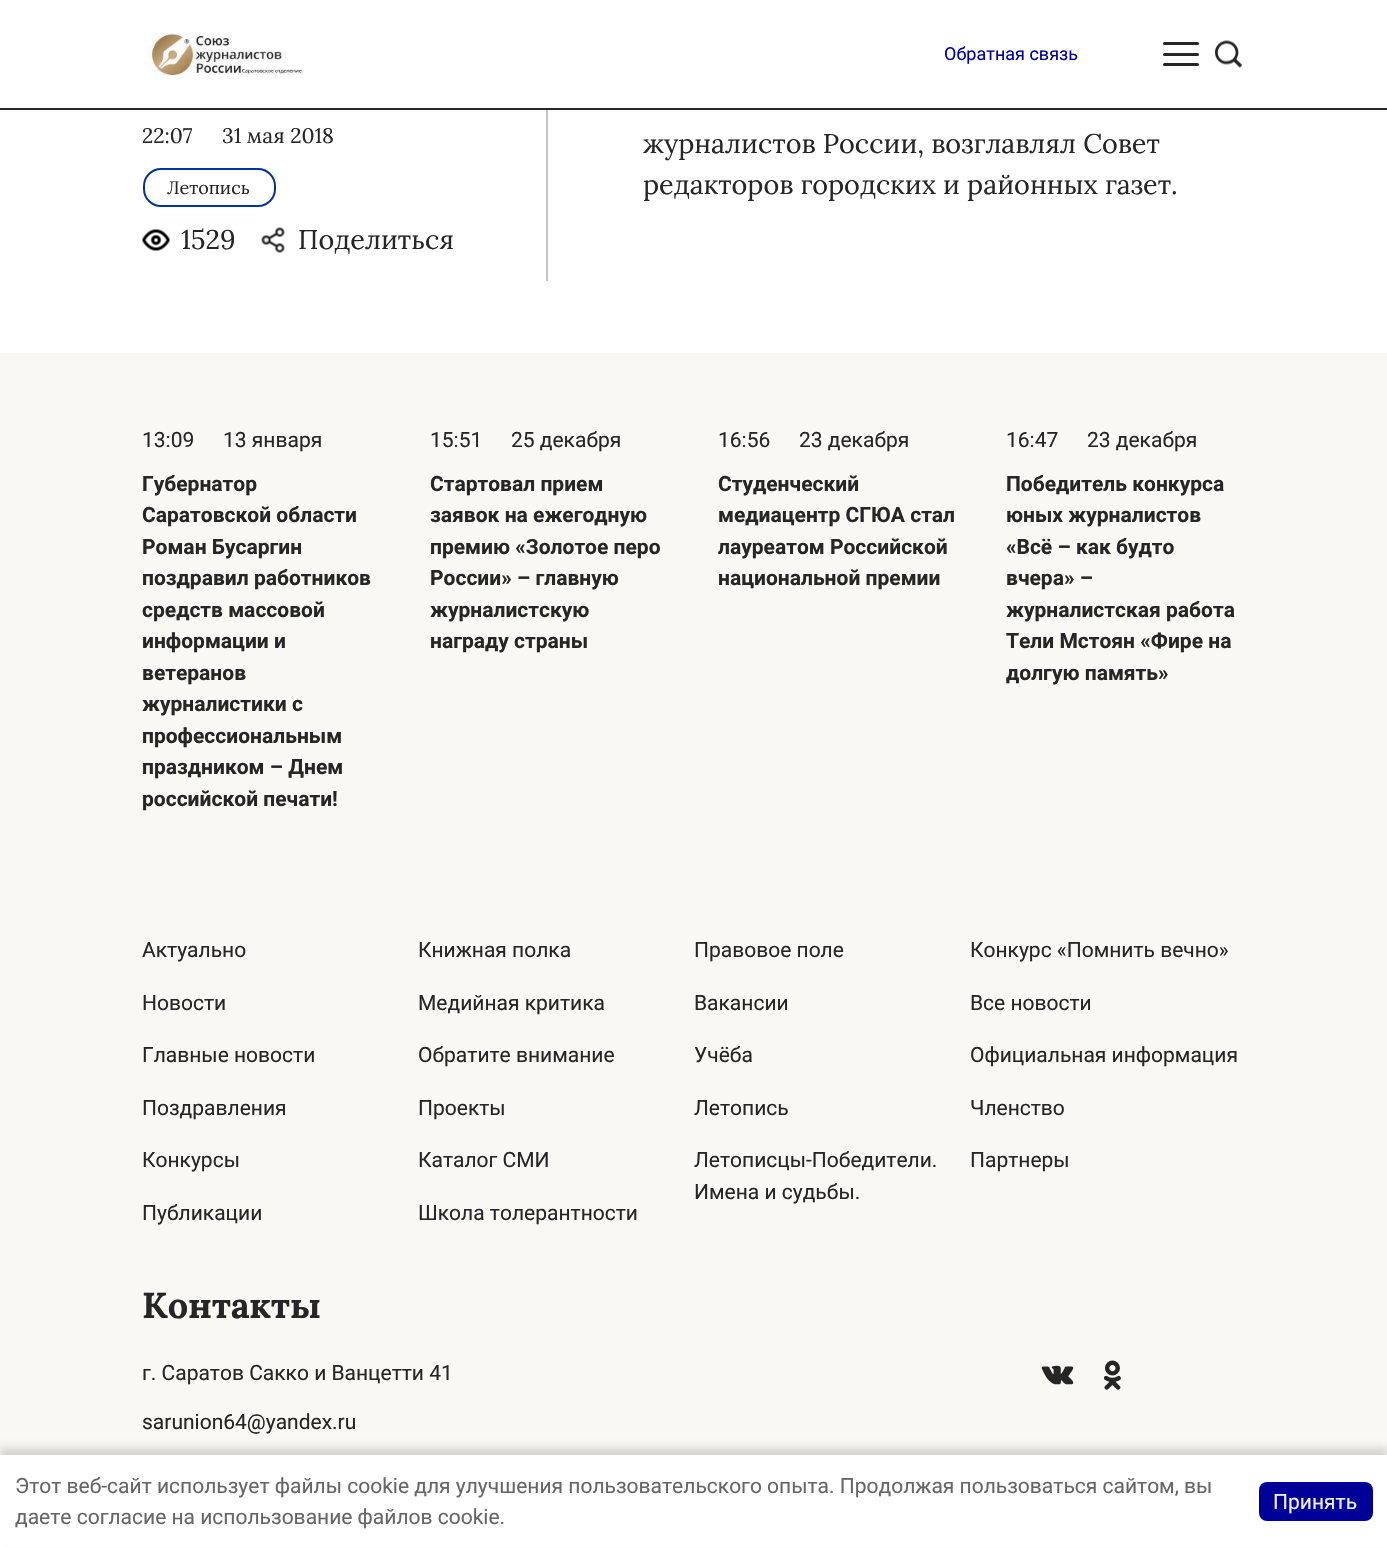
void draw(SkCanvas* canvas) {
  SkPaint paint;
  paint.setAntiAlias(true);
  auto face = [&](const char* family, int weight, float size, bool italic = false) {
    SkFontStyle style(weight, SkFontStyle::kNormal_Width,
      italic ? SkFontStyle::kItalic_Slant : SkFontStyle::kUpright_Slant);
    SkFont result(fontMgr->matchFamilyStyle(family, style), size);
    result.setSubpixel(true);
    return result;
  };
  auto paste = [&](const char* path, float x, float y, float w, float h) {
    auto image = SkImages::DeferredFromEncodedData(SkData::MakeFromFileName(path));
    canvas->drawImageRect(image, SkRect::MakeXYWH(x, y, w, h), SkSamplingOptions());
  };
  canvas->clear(0xffffffff);
  paint.setColor(0xff262626);
  canvas->drawRect(SkRect::MakeXYWH(0, 108, 1387, 2), paint);
  paste("img/1.png", 143, 33, 162, 48);
  canvas->drawRoundRect(SkRect::MakeXYWH(1163, 42, 36, 3), 1.5f, 1.5f, paint);
  canvas->drawRoundRect(SkRect::MakeXYWH(1163, 53, 36, 3), 1.5f, 1.5f, paint);
  canvas->drawRoundRect(SkRect::MakeXYWH(1163, 63, 36, 3), 1.5f, 1.5f, paint);
  paste("img/2.png", 1215, 40, 27, 28);
  paint.setColor(0xffc4c4c4);
  canvas->drawRect(SkRect::MakeXYWH(546, 110, 2, 171), paint);
  paint.setStroke(true);
  paint.setStrokeWidth(2);
  paint.setColor(0xff003399);
  canvas->drawRoundRect(SkRect::MakeXYWH(144, 169, 131, 37), 17, 17, paint);
  paste("img/3.png", 142, 229, 28, 22);
  paste("img/4.png", 261, 227, 24, 26);
  paint.setStroke(false);
  paint.setColor(0xfff9f8f4);
  canvas->drawRect(SkRect::MakeXYWH(0, 353, 1387, 1102), paint);
  paste("img/5.png", 1041, 1365, 33, 20);
  paste("img/6.png", 1103, 1360, 18, 30);
  paint.setColor(0xffd2d2d2);
  paint.setMaskFilter(SkMaskFilter::MakeBlur(kNormal_SkBlurStyle, 4));
  canvas->drawRect(SkRect::MakeXYWH(0, 1448, 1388, 93), paint);
  paint.setMaskFilter(nullptr);
  paint.setColor(0xffffffff);
  canvas->drawRect(SkRect::MakeXYWH(0, 1455, 1387, 92), paint);
  paint.setColor(0xff000099);
  canvas->drawRoundRect(SkRect::MakeXYWH(1259, 1482, 114, 39), 8, 8, paint);
  auto f0 = face("Roboto", 400, 18);
  canvas->drawString("Обратная связь", 944, 60, f0, paint);
  auto f1 = face("Lora", 400, 21);
  paint.setColor(0xff262626);
  canvas->drawString("22:07", 142, 143, f1, paint);
  canvas->drawString("31 мая 2018", 222, 143, f1, paint);
  auto f2 = face("Lora", 400, 18);
  canvas->drawString("Летопись", 167, 194, f2, paint);
  auto f3 = face("Lora", 400, 27);
  {
    const struct { const char* s; float x, y; } items[] = {
      {"1529", 181, 249},
      {"Поделиться", 298, 249},
      {"журналистов России, возглавлял Совет", 643, 153},
      {"редакторов городских и районных газет.", 643, 194},
    };
    for (auto [s, x, y] : items) {
      canvas->drawString(s, x, y, f3, paint);
    }
  }
  auto f4 = face("Roboto", 400, 21);
  canvas->drawString("13:09", 142, 447, f4, paint);
  canvas->drawString("13 января", 223, 447, f4, paint);
  auto f5 = face("Roboto", 700, 21);
  {
    const struct { const char* s; float x, y; } items[] = {
      {"Губернатор", 142, 491},
      {"Саратовской области", 142, 522},
      {"Роман Бусаргин", 142, 554},
      {"поздравил работников", 142, 585},
      {"средств массовой", 142, 617},
      {"информации и", 142, 648},
      {"ветеранов", 142, 680},
      {"журналистики с", 142, 711},
      {"профессиональным", 142, 743},
      {"праздником – Днем", 142, 774},
      {"российской печати!", 142, 806},
    };
    for (auto [s, x, y] : items) {
      canvas->drawString(s, x, y, f5, paint);
    }
  }
  canvas->drawString("15:51", 430, 447, f4, paint);
  canvas->drawString("25 декабря", 511, 447, f4, paint);
  {
    const struct { const char* s; float x, y; } items[] = {
      {"Стартовал прием", 430, 491},
      {"заявок на ежегодную", 430, 522},
      {"премию «Золотое перо", 430, 554},
      {"России» – главную", 430, 585},
      {"журналистскую", 430, 617},
      {"награду страны", 430, 648},
    };
    for (auto [s, x, y] : items) {
      canvas->drawString(s, x, y, f5, paint);
    }
  }
  canvas->drawString("16:56", 718, 447, f4, paint);
  canvas->drawString("23 декабря", 799, 447, f4, paint);
  {
    const struct { const char* s; float x, y; } items[] = {
      {"Студенческий", 718, 491},
      {"медиацентр СГЮА стал", 718, 522},
      {"лауреатом Российской", 718, 554},
      {"национальной премии", 718, 585},
    };
    for (auto [s, x, y] : items) {
      canvas->drawString(s, x, y, f5, paint);
    }
  }
  canvas->drawString("16:47", 1006, 447, f4, paint);
  canvas->drawString("23 декабря", 1087, 447, f4, paint);
  {
    const struct { const char* s; float x, y; } items[] = {
      {"Победитель конкурса", 1006, 491},
      {"юных журналистов", 1006, 522},
      {"«Всё – как будто", 1006, 554},
      {"вчера» –", 1006, 585},
      {"журналистская работа", 1006, 617},
      {"Тели Мстоян «Фире на", 1006, 648},
      {"долгую память»", 1006, 680},
    };
    for (auto [s, x, y] : items) {
      canvas->drawString(s, x, y, f5, paint);
    }
  }
  {
    const struct { const char* s; float x, y; } items[] = {
      {"Актуально", 142, 957},
      {"Книжная полка", 418, 957},
      {"Правовое поле", 694, 957},
      {"Конкурс «Помнить вечно»", 970, 957},
      {"Новости", 142, 1010},
      {"Медийная критика", 418, 1010},
      {"Вакансии", 694, 1010},
      {"Все новости", 970, 1010},
      {"Главные новости", 142, 1062},
      {"Обратите внимание", 418, 1062},
      {"Учёба", 694, 1062},
      {"Официальная информация", 970, 1062},
      {"Поздравления", 142, 1115},
      {"Проекты", 418, 1115},
      {"Летопись", 694, 1115},
      {"Членство", 970, 1115},
      {"Конкурсы", 142, 1167},
      {"Каталог СМИ", 418, 1167},
      {"Летописцы-Победители.", 694, 1167},
      {"Имена и судьбы.", 694, 1199},
      {"Партнеры", 970, 1167},
      {"Публикации", 142, 1220},
      {"Школа толерантности", 418, 1220},
    };
    for (auto [s, x, y] : items) {
      canvas->drawString(s, x, y, f4, paint);
    }
  }
  auto f6 = face("Lora", 700, 36);
  canvas->drawString("Контакты", 142, 1318, f6, paint);
  canvas->drawString("г. Саратов Сакко и Ванцетти 41", 142, 1380, f4, paint);
  canvas->drawString("sarunion64@yandex.ru", 142, 1429, f4, paint);
  paint.setColor(0xff666666);
  canvas->drawString("Этот веб-сайт использует файлы cookie для улучшения пользовательского опыта. Продолжая пользоваться сайтом, вы", 15, 1493, f4, paint);
  canvas->drawString("даете согласие на использование файлов cookie.", 15, 1524, f4, paint);
  paint.setColor(0xffefefef);
  canvas->drawString("Принять", 1273, 1509, f4, paint);
}
